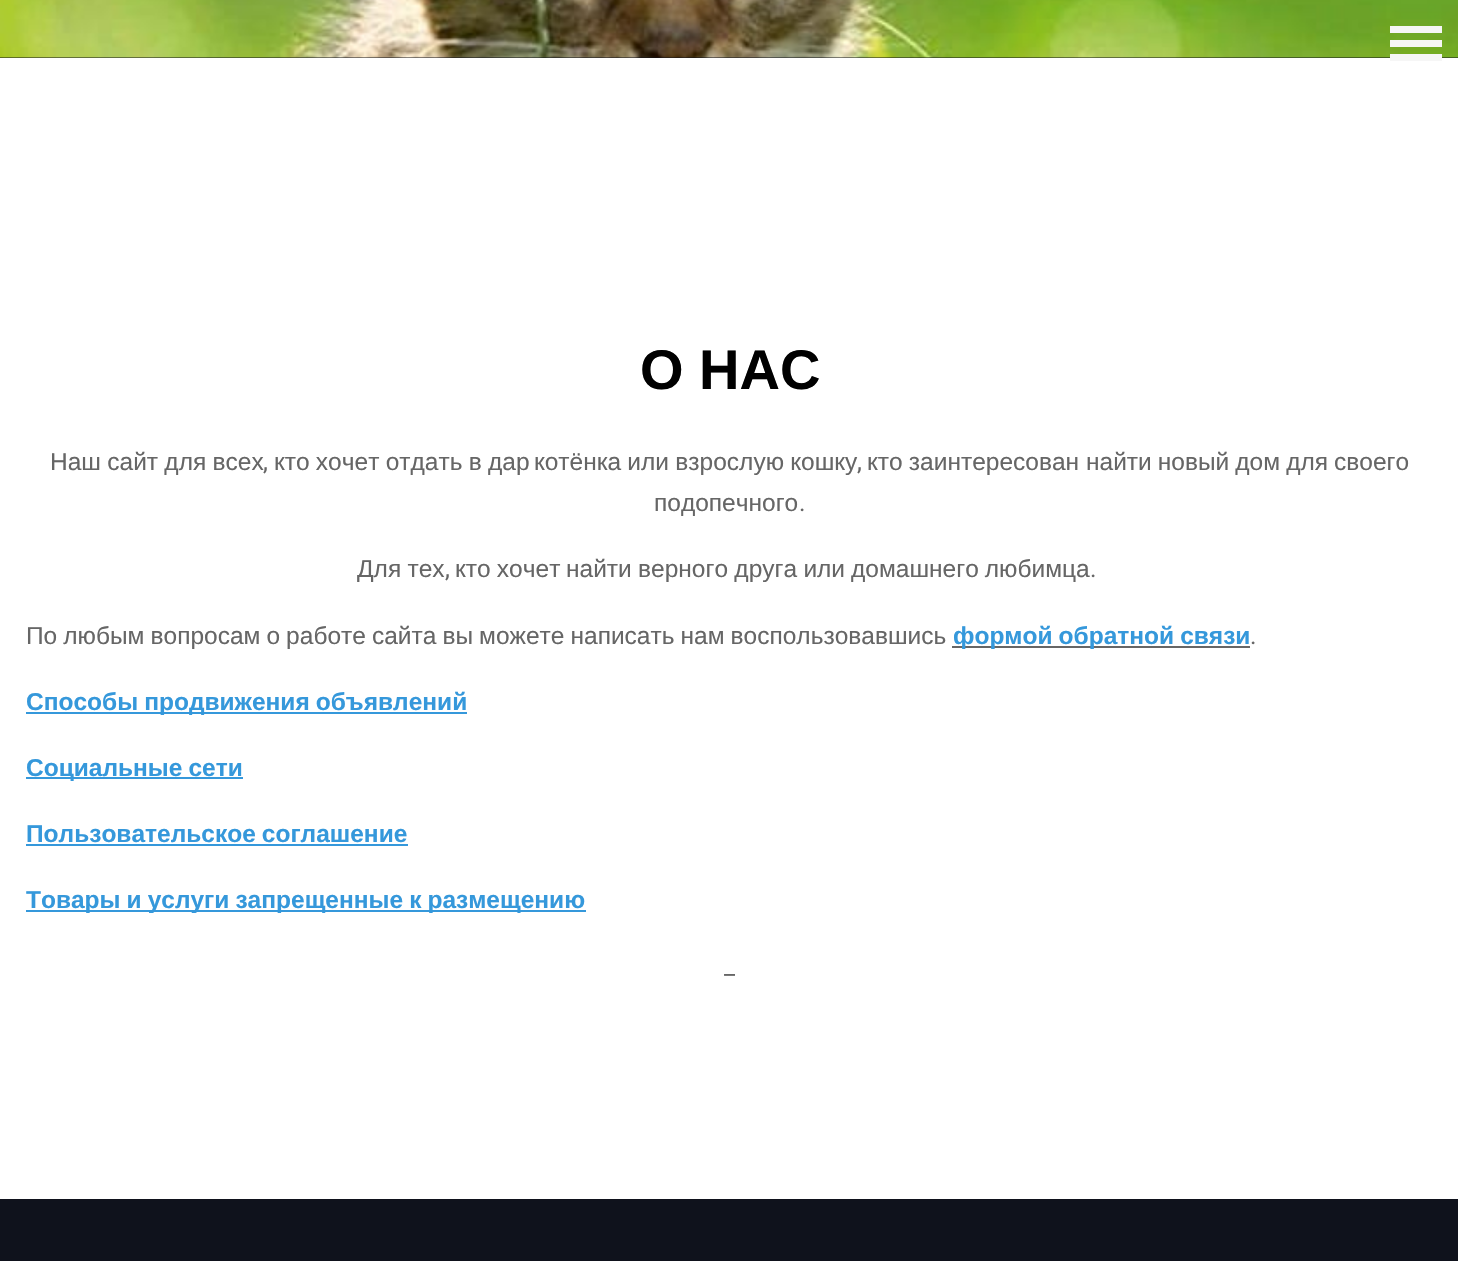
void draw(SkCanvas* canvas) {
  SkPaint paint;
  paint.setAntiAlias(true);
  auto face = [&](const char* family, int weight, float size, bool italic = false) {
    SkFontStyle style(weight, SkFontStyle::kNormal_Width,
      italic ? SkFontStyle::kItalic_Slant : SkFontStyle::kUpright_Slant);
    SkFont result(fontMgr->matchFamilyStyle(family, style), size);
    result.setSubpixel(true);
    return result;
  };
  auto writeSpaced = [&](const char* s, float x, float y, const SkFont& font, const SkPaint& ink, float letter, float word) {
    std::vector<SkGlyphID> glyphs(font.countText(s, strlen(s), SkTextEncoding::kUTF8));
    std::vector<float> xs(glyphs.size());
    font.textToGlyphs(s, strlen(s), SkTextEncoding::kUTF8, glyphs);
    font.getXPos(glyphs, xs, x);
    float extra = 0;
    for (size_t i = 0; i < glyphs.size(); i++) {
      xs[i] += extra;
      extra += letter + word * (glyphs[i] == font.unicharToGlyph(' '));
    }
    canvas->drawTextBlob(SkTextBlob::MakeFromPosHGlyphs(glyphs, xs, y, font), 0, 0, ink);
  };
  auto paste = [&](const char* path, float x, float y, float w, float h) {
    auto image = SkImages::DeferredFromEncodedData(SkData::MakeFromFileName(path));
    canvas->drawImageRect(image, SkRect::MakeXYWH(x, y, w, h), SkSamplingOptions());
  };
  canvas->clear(0xffffffff);
  paint.setColor(0xff0f121c);
  canvas->drawRect(SkRect::MakeXYWH(0, 57, 1458, 1), paint);
  paste("img/1.png", 0, 0, 1458, 58);
  {
    const struct { float x, y, w, h; SkColor color; } items[] = {
      {1390, 26, 52, 7, 0xfff6f6f6},
      {1390, 40, 52, 7, 0xfff6f6f6},
      {1390, 54, 52, 7, 0xfff6f6f6},
      {952, 646, 298, 2, 0xff666666},
      {26, 712, 441, 2, 0xff3598db},
      {26, 777, 217, 2, 0xff3598db},
      {26, 844, 382, 2, 0xff3598db},
      {26, 910, 560, 2, 0xff3598db},
      {0, 1199, 1458, 62, 0xff0f121c},
    };
    for (auto [x, y, w, h, color] : items) {
      paint.setColor(color);
      canvas->drawRect(SkRect::MakeXYWH(x, y, w, h), paint);
    }
  }
  auto f0 = face("Liberation Sans", 700, 56);
  paint.setColor(0xff000000);
  canvas->drawString("О НАС", 640, 389, f0, paint);
  auto f1 = face("Liberation Sans", 400, 24.5f);
  paint.setColor(0xff666666);
  writeSpaced("Наш сайт для всех", 50, 470, f1, paint, 0, -0.5f);
  auto f2 = face("Roboto", 400, 24.5f);
  canvas->drawString(",", 263, 470, f2, paint);
  writeSpaced("кто хочет отдать в дар", 274, 470, f1, paint, 0, -0.5f);
  writeSpaced("котёнка или взрослую кошку", 534, 470, f1, paint, 0, -0.5f);
  canvas->drawString(",", 857, 470, f2, paint);
  writeSpaced("кто заинтересован", 867, 470, f1, paint, 0, -0.5f);
  writeSpaced("найти новый дом для своего", 1086, 470, f1, paint, 0, -0.75f);
  canvas->drawString("подопечного", 654, 511, f1, paint);
  canvas->drawString(".", 799, 511, f2, paint);
  writeSpaced("Для тех", 357, 577, f1, paint, 0, -0.5f);
  canvas->drawString(",", 445, 577, f2, paint);
  writeSpaced("кто хочет", 455, 577, f1, paint, 0, -0.5f);
  writeSpaced("найти верного друга или", 566, 577, f1, paint, 0, -0.5f);
  writeSpaced("домашнего любимца", 851, 577, f1, paint, 0, -0.75f);
  canvas->drawString(".", 1090, 577, f2, paint);
  writeSpaced("По любым вопросам о работе сайта вы можете написать нам воспользовавшись", 26, 644, f1, paint, 0, -0.75f);
  auto f3 = face("Liberation Sans", 700, 24.5f);
  paint.setColor(0xff3598db);
  writeSpaced("формой обратной связи", 953, 644, f3, paint, 0, -0.75f);
  paint.setColor(0xff666666);
  canvas->drawString(".", 1250, 644, f2, paint);
  paint.setColor(0xff3598db);
  {
    const struct { const char* s; float x, y; } items[] = {
      {"Способы продвижения объявлений", 26, 710},
      {"Социальные сети", 26, 776},
      {"Пользовательское соглашение", 26, 842},
      {"Товары и услуги запрещенные к размещению", 26, 908},
    };
    for (auto [s, x, y] : items) {
      writeSpaced(s, x, y, f3, paint, 0, -0.75f);
    }
  }
  paint.setColor(0xff666666);
  canvas->drawString("_", 724, 974, f2, paint);
}
